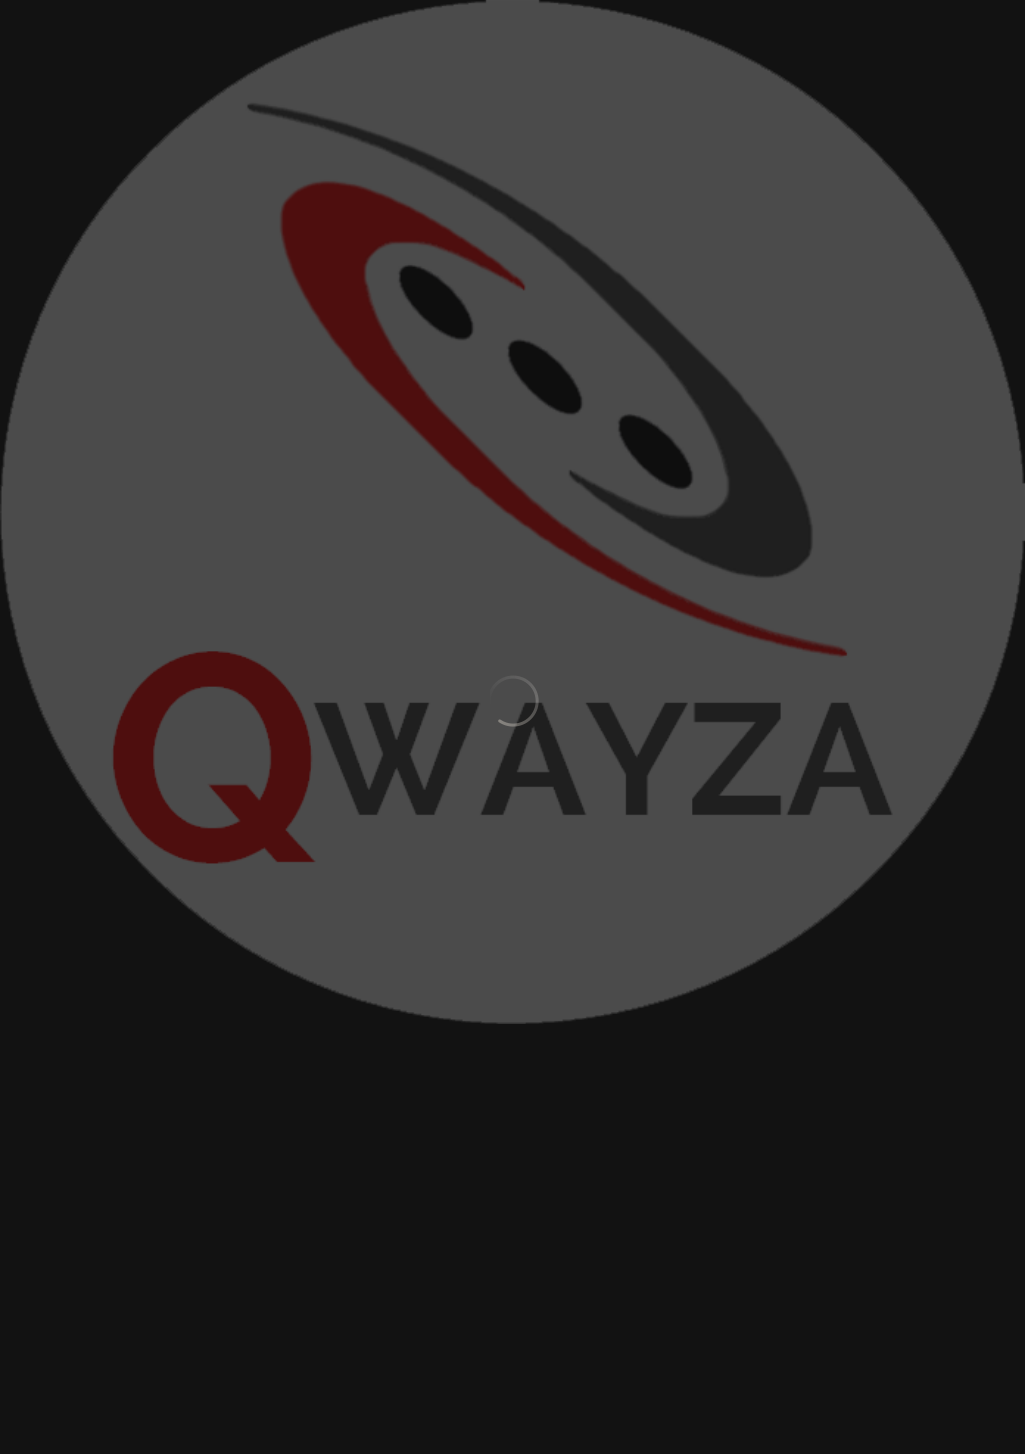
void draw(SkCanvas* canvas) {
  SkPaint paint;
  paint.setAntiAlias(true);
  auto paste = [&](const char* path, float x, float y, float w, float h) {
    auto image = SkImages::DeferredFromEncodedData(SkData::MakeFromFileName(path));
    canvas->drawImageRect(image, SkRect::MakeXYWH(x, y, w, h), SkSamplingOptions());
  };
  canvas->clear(0xff121212);
  paste("img/1.png", 0, 0, 1025, 1024);
  paste("img/2.png", 490, 675, 49, 52);
}
